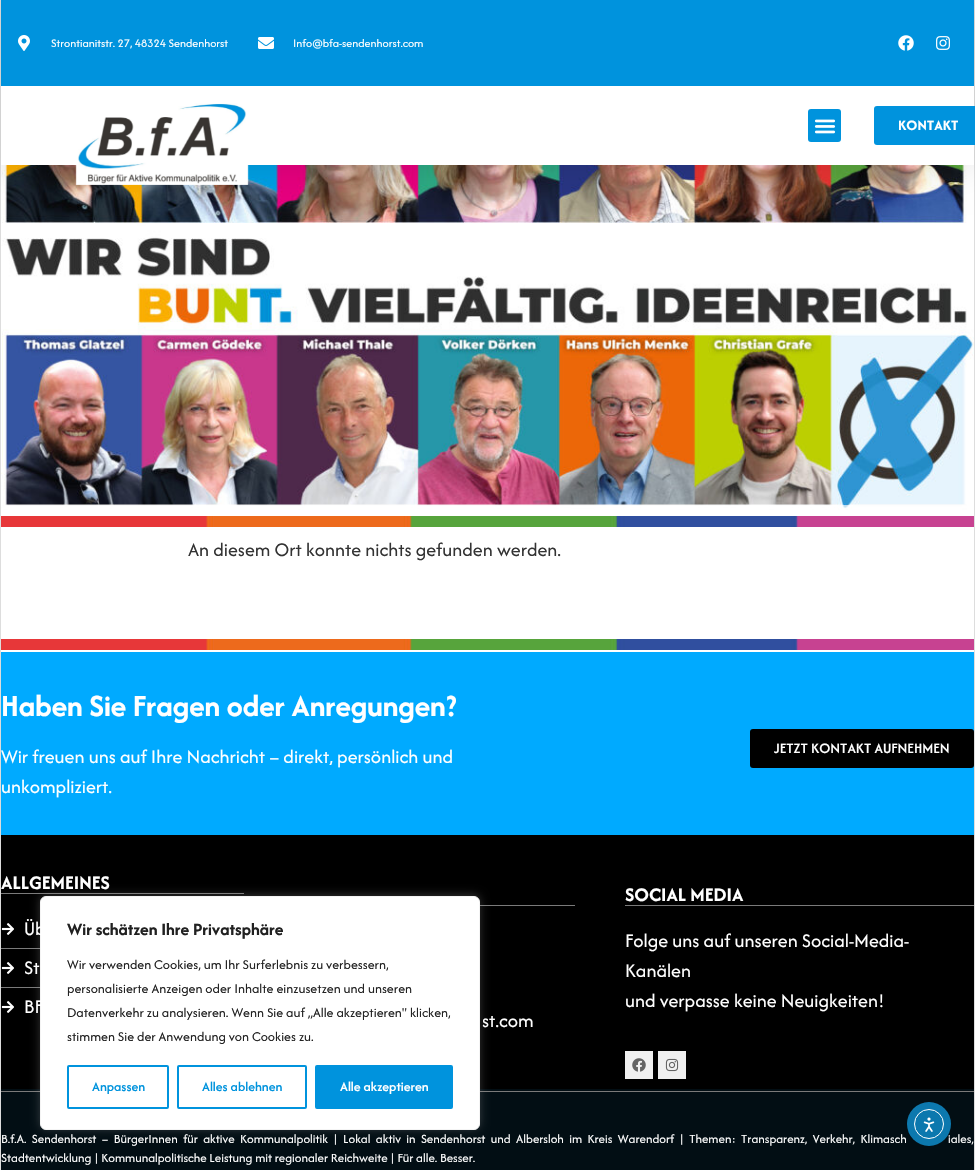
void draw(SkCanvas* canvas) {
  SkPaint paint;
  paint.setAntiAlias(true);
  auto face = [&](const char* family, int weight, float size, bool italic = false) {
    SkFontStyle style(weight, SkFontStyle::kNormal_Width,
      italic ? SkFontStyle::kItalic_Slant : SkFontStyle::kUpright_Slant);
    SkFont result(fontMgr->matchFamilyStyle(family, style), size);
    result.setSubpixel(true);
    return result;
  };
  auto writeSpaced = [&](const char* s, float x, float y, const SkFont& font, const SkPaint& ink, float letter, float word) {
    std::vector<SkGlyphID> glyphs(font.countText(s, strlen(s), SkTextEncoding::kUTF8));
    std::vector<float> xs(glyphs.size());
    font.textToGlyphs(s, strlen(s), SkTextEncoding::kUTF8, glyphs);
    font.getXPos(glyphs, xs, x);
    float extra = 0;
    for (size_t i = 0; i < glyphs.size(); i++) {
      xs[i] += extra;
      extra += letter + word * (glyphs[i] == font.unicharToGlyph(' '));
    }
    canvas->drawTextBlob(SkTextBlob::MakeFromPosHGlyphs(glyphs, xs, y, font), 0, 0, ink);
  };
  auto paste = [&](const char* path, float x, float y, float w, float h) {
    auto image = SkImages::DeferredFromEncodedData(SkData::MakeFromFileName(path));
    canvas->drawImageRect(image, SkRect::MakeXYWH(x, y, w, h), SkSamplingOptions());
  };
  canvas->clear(0xffffffff);
  paint.setColor(0xffdddddd);
  canvas->drawRect(SkRect::MakeXYWH(974, 0, 1, 1170), paint);
  canvas->drawRect(SkRect::MakeXYWH(0, 0, 1, 1170), paint);
  paste("img/7.png", 1, 165, 973, 345);
  paint.setColor(0x1a000000);
  paint.setMaskFilter(SkMaskFilter::MakeBlur(kNormal_SkBlurStyle, 15));
  canvas->drawRect(SkRect::MakeXYWH(1, 5, 973, 165), paint);
  paint.setMaskFilter(nullptr);
  paint.setColor(0xff0093dd);
  canvas->drawRect(SkRect::MakeXYWH(1, 0, 973, 86), paint);
  paste("img/1.png", 18, 35, 12, 16);
  paste("img/2.png", 258, 37, 16, 12);
  paste("img/3.png", 898, 35, 16, 16);
  paste("img/4.png", 936, 36, 14, 14);
  paint.setColor(0xffffffff);
  canvas->drawRect(SkRect::MakeXYWH(1, 86, 973, 79), paint);
  paste("img/5.png", 75, 103, 174, 82);
  paint.setColor(0xff0093dd);
  canvas->drawRoundRect(SkRect::MakeXYWH(808, 109, 33, 33), 3, 3, paint);
  paste("img/6.png", 814, 119, 22, 15);
  canvas->drawRoundRect(SkRect::MakeXYWH(874, 106, 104, 39), 3, 3, paint);
  paint.setColor(0xadffffff);
  canvas->drawRect(SkRect::MakeXYWH(5, 505, 848, 5), paint);
  paste("img/8.png", 1, 516, 973, 11);
  paste("img/8.png", 1, 639, 973, 11);
  paint.setColor(0xff00aaff);
  canvas->drawRect(SkRect::MakeXYWH(1, 652, 973, 183), paint);
  paint.setColor(0xff000000);
  canvas->drawRoundRect(SkRect::MakeXYWH(750, 729, 224, 39), 3, 3, paint);
  canvas->drawRect(SkRect::MakeXYWH(1, 835, 973, 254), paint);
  paint.setColor(0xff7a7a7a);
  canvas->drawRect(SkRect::MakeXYWH(1, 893, 243, 1), paint);
  paste("img/9.png", 1, 923, 13, 12);
  canvas->drawRect(SkRect::MakeXYWH(1, 948, 39, 1), paint);
  paste("img/9.png", 1, 962, 13, 12);
  canvas->drawRect(SkRect::MakeXYWH(1, 987, 39, 1), paint);
  paste("img/9.png", 1, 1001, 13, 12);
  canvas->drawRect(SkRect::MakeXYWH(625, 905, 349, 1), paint);
  paint.setColor(0xfff0f0f0);
  canvas->drawRect(SkRect::MakeXYWH(625, 1051, 28, 28), paint);
  paste("img/10.png", 632, 1058, 14, 14);
  canvas->drawRect(SkRect::MakeXYWH(658, 1051, 28, 28), paint);
  paste("img/11.png", 665, 1058, 14, 14);
  {
    const struct { float x, y, w, h; SkColor color; } items[] = {
      {480, 905, 95, 1, 0xff7a7a7a},
      {1, 1089, 973, 81, 0xff020e14},
      {1, 1091, 973, 1, 0xff7a7a7a},
    };
    for (auto [x, y, w, h, color] : items) {
      paint.setColor(color);
      canvas->drawRect(SkRect::MakeXYWH(x, y, w, h), paint);
    }
  }
  paint.setColor(0x4dacabab);
  paint.setMaskFilter(SkMaskFilter::MakeBlur(kNormal_SkBlurStyle, 5));
  canvas->drawRoundRect(SkRect::MakeXYWH(40, 895, 440, 234), 6, 6, paint);
  paint.setMaskFilter(nullptr);
  paint.setColor(0xffffffff);
  canvas->drawRoundRect(SkRect::MakeXYWH(40.5f, 896.5f, 439, 233), 5.5f, 5.5f, paint);
  paint.setStroke(true);
  paint.setStrokeWidth(1);
  paint.setColor(0xfff4f4f4);
  canvas->drawRoundRect(SkRect::MakeXYWH(40.5f, 896.5f, 439, 233), 5.5f, 5.5f, paint);
  paint.setStrokeWidth(2);
  paint.setColor(0xff0093dd);
  canvas->drawRoundRect(SkRect::MakeXYWH(68, 1066, 100, 42), 1, 1, paint);
  canvas->drawRoundRect(SkRect::MakeXYWH(178, 1066, 128, 42), 1, 1, paint);
  paint.setStroke(false);
  canvas->drawRoundRect(SkRect::MakeXYWH(316, 1066, 136, 42), 1, 1, paint);
  paint.setStroke(true);
  canvas->drawRoundRect(SkRect::MakeXYWH(316, 1066, 136, 42), 1, 1, paint);
  auto f0 = face("Afacad", 400, 12);
  paint.setStroke(false);
  paint.setColor(0xffffffff);
  canvas->drawString("Strontianitstr. 27, 48324 Sendenhorst", 51, 47, f0, paint);
  canvas->drawString("Info@bfa-sendenhorst.com", 293, 47, f0, paint);
  auto f1 = face("Afacad", 700, 15);
  canvas->drawString("KONTAKT", 898, 130, f1, paint);
  auto f2 = face("Afacad", 400, 20);
  paint.setColor(0xff333333);
  canvas->drawString("An diesem Ort konnte nichts gefunden werden.", 188, 556, f2, paint);
  auto f3 = face("Afacad", 700, 32);
  paint.setColor(0xffffffff);
  canvas->drawString("Haben Sie Fragen oder Anregungen?", 1, 716, f3, paint);
  canvas->drawString("Wir freuen uns auf Ihre Nachricht – direkt, persönlich und", 1, 763, f2, paint);
  canvas->drawString("unkompliziert.", 1, 793, f2, paint);
  auto f4 = face("Afacad", 500, 15);
  canvas->drawString("JETZT KONTAKT AUFNEHMEN", 774, 753, f4, paint);
  auto f5 = face("Afacad", 700, 20);
  canvas->drawString("ALLGEMEINES", 1, 889, f5, paint);
  {
    const struct { const char* s; float x, y; } items[] = {
      {"Üb", 24, 935},
      {"St", 24, 974},
      {"BF", 24, 1013},
    };
    for (auto [s, x, y] : items) {
      canvas->drawString(s, x, y, f2, paint);
    }
  }
  canvas->drawString("SOCIAL MEDIA", 625, 901, f5, paint);
  {
    const struct { const char* s; float x, y; } items[] = {
      {"Folge uns auf unseren Social-Media-", 625, 947},
      {"Kanälen", 625, 977},
      {"und verpasse keine Neuigkeiten!", 625, 1007},
      {"st.com", 482, 1027},
    };
    for (auto [s, x, y] : items) {
      canvas->drawString(s, x, y, f2, paint);
    }
  }
  auto f6 = face("Afacad", 400, 13);
  writeSpaced("B.f.A. Sendenhorst – BürgerInnen für aktive Kommunalpolitik | Lokal aktiv in Sendenhorst und Albersloh im Kreis Warendorf | Themen: Transparenz, Verkehr, Klimasch", 1, 1143, f6, paint, 0, 2.7f);
  writeSpaced("iales,", 948, 1143, f6, paint, 0, 2.7f);
  canvas->drawString("Stadtentwicklung | Kommunalpolitische Leistung mit regionaler Reichweite | Für alle. Besser.", 1, 1162, f6, paint);
  auto f7 = face("Afacad", 700, 18);
  paint.setColor(0xff212121);
  canvas->drawString("Wir schätzen Ihre Privatsphäre", 67, 935, f7, paint);
  auto f8 = face("Afacad", 400, 14);
  {
    const struct { const char* s; float x, y; } items[] = {
      {"Wir verwenden Cookies, um Ihr Surferlebnis zu verbessern,", 67, 969},
      {"personalisierte Anzeigen oder Inhalte einzusetzen und unseren", 67, 993},
      {"Datenverkehr zu analysieren. Wenn Sie auf „Alle akzeptieren\" klicken,", 67, 1017},
      {"stimmen Sie der Anwendung von Cookies zu.", 67, 1041},
    };
    for (auto [s, x, y] : items) {
      canvas->drawString(s, x, y, f8, paint);
    }
  }
  auto f9 = face("Afacad", 500, 14);
  paint.setColor(0xff0093dd);
  canvas->drawString("Anpassen", 92, 1091, f9, paint);
  canvas->drawString("Alles ablehnen", 202, 1091, f9, paint);
  paint.setColor(0xffffffff);
  canvas->drawString("Alle akzeptieren", 340, 1091, f9, paint);
  paint.setColor(0xff0c78ae);
  canvas->drawCircle(929, 1124, 22, paint);
  paint.setStroke(true);
  paint.setStrokeWidth(1);
  paint.setColor(0xffffffff);
  canvas->drawCircle(929, 1124, 14.5f, paint);
  paste("img/12.png", 923, 1117, 12, 15);
}
